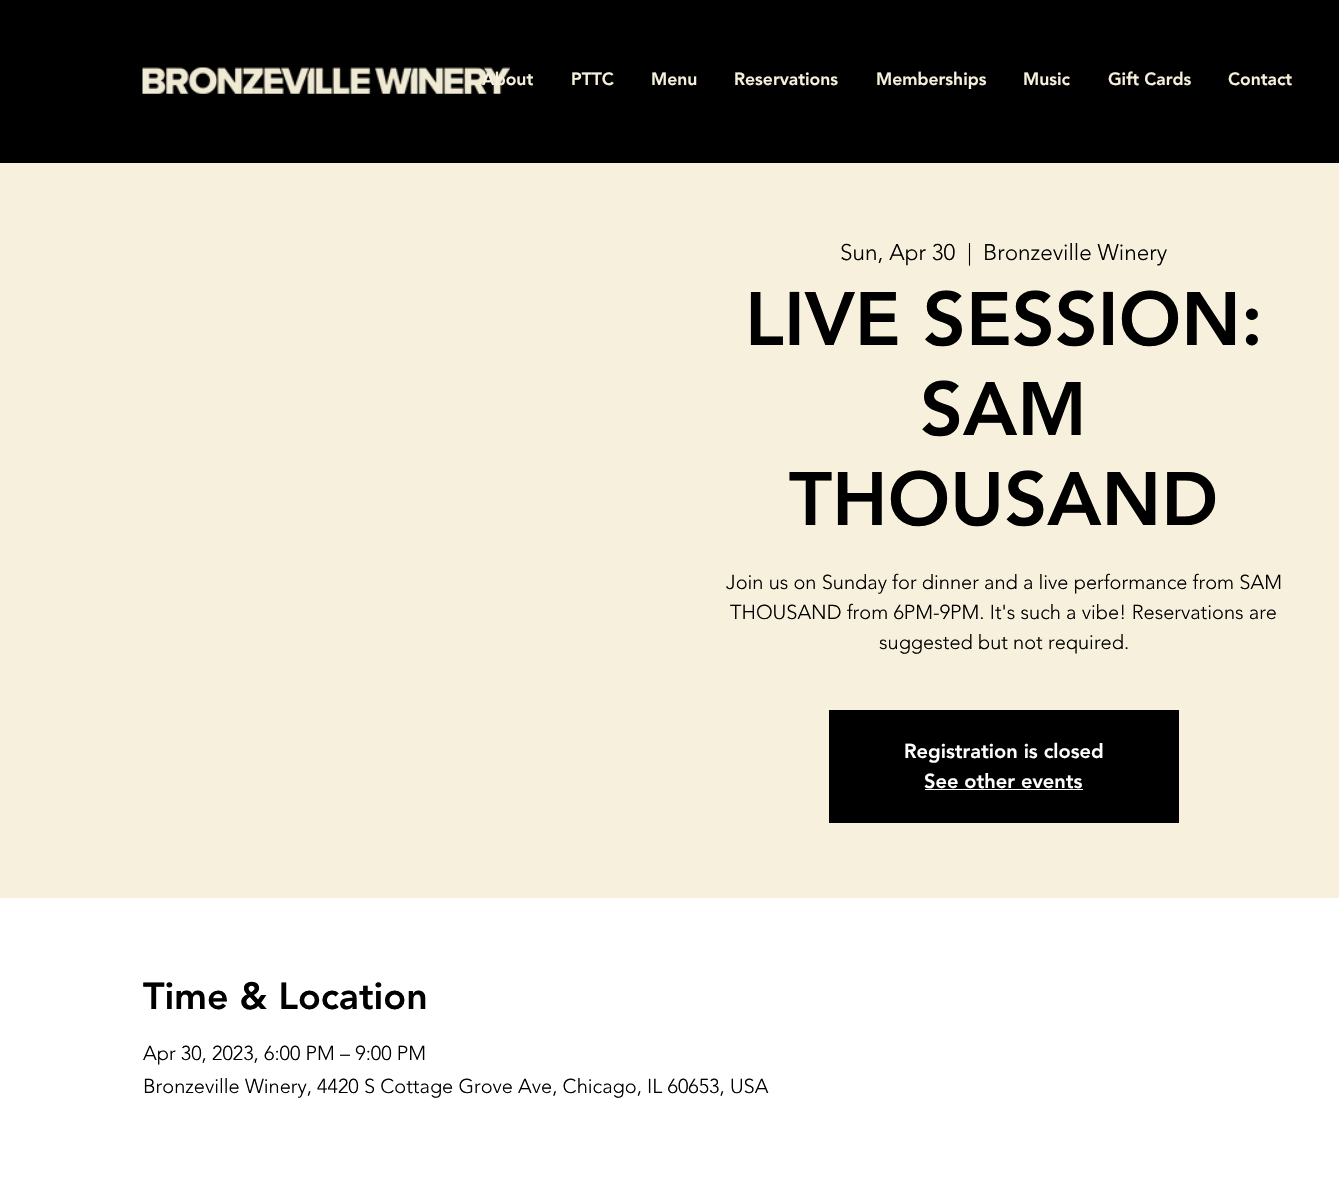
void draw(SkCanvas* canvas) {
  SkPaint paint;
  paint.setAntiAlias(true);
  auto face = [&](const char* family, int weight, float size, bool italic = false) {
    SkFontStyle style(weight, SkFontStyle::kNormal_Width,
      italic ? SkFontStyle::kItalic_Slant : SkFontStyle::kUpright_Slant);
    SkFont result(fontMgr->matchFamilyStyle(family, style), size);
    result.setSubpixel(true);
    return result;
  };
  auto paste = [&](const char* path, float x, float y, float w, float h) {
    auto image = SkImages::DeferredFromEncodedData(SkData::MakeFromFileName(path));
    canvas->drawImageRect(image, SkRect::MakeXYWH(x, y, w, h), SkSamplingOptions());
  };
  canvas->clear(0xffffffff);
  paint.setColor(0xff000000);
  canvas->drawRect(SkRect::MakeXYWH(0, 0, 1339, 163), paint);
  paste("img/1.png", 142, 67, 368, 27);
  {
    const struct { float x, y, w, h; SkColor color; } items[] = {
      {0, 163, 1339, 735, 0xfff7f0dc},
      {829, 710, 350, 113, 0xff000000},
      {925, 789, 158, 1, 0xffffffff},
    };
    for (auto [x, y, w, h, color] : items) {
      paint.setColor(color);
      canvas->drawRect(SkRect::MakeXYWH(x, y, w, h), paint);
    }
  }
  auto f0 = face("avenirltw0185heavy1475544", 900, 17.5f);
  paint.setColor(0xfff7f0dc);
  {
    const struct { const char* s; float x, y; } items[] = {
      {"About", 482, 85},
      {"PTTC", 571, 85},
      {"Menu", 651, 85},
      {"Reservations", 734, 85},
      {"Memberships", 876, 85},
      {"Music", 1023, 85},
      {"Gift Cards", 1108, 85},
      {"Contact", 1228, 85},
    };
    for (auto [s, x, y] : items) {
      canvas->drawString(s, x, y, f0, paint);
    }
  }
  auto f1 = face("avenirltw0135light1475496", 300, 22.5f);
  paint.setColor(0xff000000);
  {
    const struct { const char* s; float x, y; } items[] = {
      {"Sun, Apr 30", 840, 260},
      {"|", 967, 260},
      {"Bronzeville Winery", 983, 260},
    };
    for (auto [s, x, y] : items) {
      canvas->drawString(s, x, y, f1, paint);
    }
  }
  auto f2 = face("avenirltw0185heavy1475544", 900, 75);
  {
    const struct { const char* s; float x, y; } items[] = {
      {"LIVE SESSION:", 745, 345},
      {"SAM", 920, 435},
      {"THOUSAND", 789, 525},
    };
    for (auto [s, x, y] : items) {
      canvas->drawString(s, x, y, f2, paint);
    }
  }
  auto f3 = face("avenirltw0135light1475496", 300, 20);
  {
    const struct { const char* s; float x, y; } items[] = {
      {"Join us on Sunday for dinner and a live performance from SAM", 726, 589},
      {"THOUSAND from 6PM-9PM. It's such a vibe! Reservations are", 730, 619},
      {"suggested but not required.", 879, 649},
    };
    for (auto [s, x, y] : items) {
      canvas->drawString(s, x, y, f3, paint);
    }
  }
  auto f4 = face("avenirltw0185heavy1475544", 900, 20);
  paint.setColor(0xffffffff);
  canvas->drawString("Registration is closed", 904, 758, f4, paint);
  canvas->drawString("See other events", 924, 788, f4, paint);
  auto f5 = face("avenirltw0185heavy1475544", 900, 37.5f);
  paint.setColor(0xff000000);
  canvas->drawString("Time & Location", 143, 1009, f5, paint);
  canvas->drawString("Apr 30, 2023, 6:00 PM – 9:00 PM", 143, 1060, f3, paint);
  canvas->drawString("Bronzeville Winery, 4420 S Cottage Grove Ave, Chicago, IL 60653, USA", 143, 1093, f3, paint);
}
